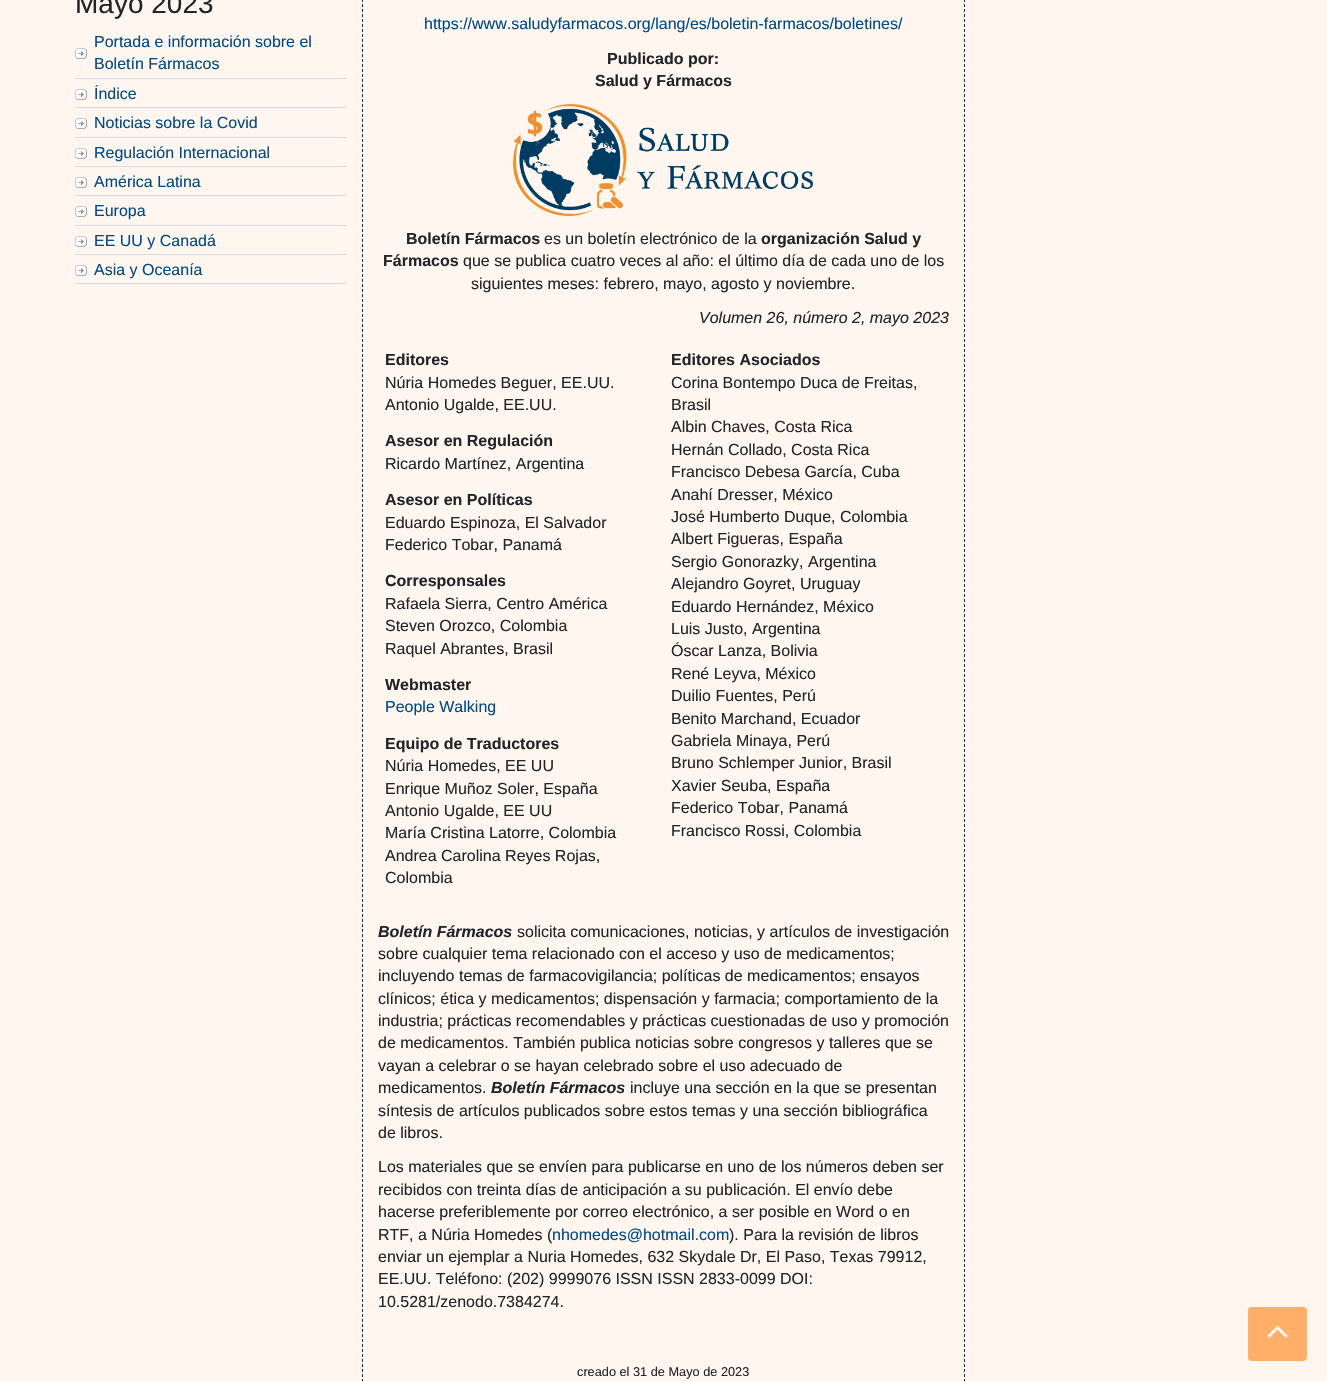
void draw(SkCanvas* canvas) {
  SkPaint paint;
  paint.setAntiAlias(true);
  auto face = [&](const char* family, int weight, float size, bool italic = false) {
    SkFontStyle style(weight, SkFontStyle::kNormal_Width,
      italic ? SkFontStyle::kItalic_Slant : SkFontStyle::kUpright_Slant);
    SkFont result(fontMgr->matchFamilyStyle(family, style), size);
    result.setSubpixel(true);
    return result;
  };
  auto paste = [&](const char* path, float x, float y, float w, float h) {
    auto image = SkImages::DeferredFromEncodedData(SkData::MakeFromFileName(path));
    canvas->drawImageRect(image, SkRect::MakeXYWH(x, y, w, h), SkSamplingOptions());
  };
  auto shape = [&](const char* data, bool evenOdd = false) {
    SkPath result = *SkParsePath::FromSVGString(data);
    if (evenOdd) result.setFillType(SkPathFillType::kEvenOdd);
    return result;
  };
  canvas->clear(0xfffff7ef);
  paste("img/1.png", 75, 48, 12, 11);
  paint.setColor(0xffdadada);
  canvas->drawRect(SkRect::MakeXYWH(75, 78, 272, 1), paint);
  paste("img/1.png", 75, 89, 12, 11);
  canvas->drawRect(SkRect::MakeXYWH(75, 107, 272, 1), paint);
  paste("img/1.png", 75, 118, 12, 11);
  canvas->drawRect(SkRect::MakeXYWH(75, 137, 272, 1), paint);
  paste("img/1.png", 75, 148, 12, 11);
  canvas->drawRect(SkRect::MakeXYWH(75, 166, 272, 1), paint);
  paste("img/1.png", 75, 177, 12, 11);
  canvas->drawRect(SkRect::MakeXYWH(75, 195, 272, 1), paint);
  paste("img/1.png", 75, 206, 12, 11);
  canvas->drawRect(SkRect::MakeXYWH(75, 225, 272, 1), paint);
  paste("img/1.png", 75, 236, 12, 11);
  canvas->drawRect(SkRect::MakeXYWH(75, 254, 272, 1), paint);
  paste("img/1.png", 75, 265, 12, 11);
  canvas->drawRect(SkRect::MakeXYWH(75, 283, 272, 1), paint);
  paint.setStroke(true);
  paint.setStrokeWidth(1);
  paint.setColor(0xff00335e);
  paint.setPathEffect(SkDashPathEffect::Make({{3, 2}}, 0));
  canvas->drawPath(shape("M964.5-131V1381"), paint);
  paint.setPathEffect(nullptr);
  paint.setPathEffect(SkDashPathEffect::Make({{3, 2}}, 0));
  canvas->drawPath(shape("M362.5-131V1381"), paint);
  paint.setPathEffect(nullptr);
  paste("img/2.png", 513, 104, 300, 112);
  paint.setStroke(false);
  paint.setColor(0xffffaf68);
  canvas->drawRoundRect(SkRect::MakeXYWH(1248, 1307, 59, 54), 4, 4, paint);
  paste("img/3.png", 1267, 1326, 21, 12);
  auto f0 = face("Liberation Sans", 400, 28);
  paint.setColor(0xff212529);
  canvas->drawString("Mayo 2023", 75, 13, f0, paint);
  auto f1 = face("Liberation Sans", 400, 16);
  paint.setColor(0xff004a86);
  {
    const struct { const char* s; float x, y; } items[] = {
      {"Portada e información sobre el", 94, 47},
      {"Boletín Fármacos", 94, 69},
      {"Índice", 94, 99},
      {"Noticias sobre la Covid", 94, 128},
      {"Regulación Internacional", 94, 158},
      {"América Latina", 94, 187},
      {"Europa", 94, 216},
      {"EE UU y Canadá", 94, 246},
      {"Asia y Oceanía", 94, 275},
      {"https://www.saludyfarmacos.org/lang/es/boletin-farmacos/boletines/", 424, 29},
    };
    for (auto [s, x, y] : items) {
      canvas->drawString(s, x, y, f1, paint);
    }
  }
  auto f2 = face("Liberation Sans", 700, 16);
  paint.setColor(0xff212529);
  {
    const struct { const char* s; float x, y; } items[] = {
      {"Publicado por:", 607, 64},
      {"Salud y Fármacos", 595, 86},
      {"Boletín Fármacos", 406, 244},
    };
    for (auto [s, x, y] : items) {
      canvas->drawString(s, x, y, f2, paint);
    }
  }
  canvas->drawString("es un boletín electrónico de la", 544, 244, f1, paint);
  canvas->drawString("organización Salud y", 761, 244, f2, paint);
  canvas->drawString("Fármacos", 383, 266, f2, paint);
  canvas->drawString("que se publica cuatro veces al año: el último día de cada uno de los", 463, 266, f1, paint);
  canvas->drawString("siguientes meses: febrero, mayo, agosto y noviembre.", 471, 289, f1, paint);
  auto f3 = face("Liberation Sans", 400, 16, true);
  canvas->drawString("Volumen 26, número 2, mayo 2023", 699, 323, f3, paint);
  canvas->drawString("Editores", 385, 365, f2, paint);
  canvas->drawString("Núria Homedes Beguer, EE.UU.", 385, 388, f1, paint);
  canvas->drawString("Antonio Ugalde, EE.UU.", 385, 410, f1, paint);
  canvas->drawString("Asesor en Regulación", 385, 446, f2, paint);
  canvas->drawString("Ricardo Martínez, Argentina", 385, 469, f1, paint);
  canvas->drawString("Asesor en Políticas", 385, 505, f2, paint);
  canvas->drawString("Eduardo Espinoza, El Salvador", 385, 528, f1, paint);
  canvas->drawString("Federico Tobar, Panamá", 385, 550, f1, paint);
  canvas->drawString("Corresponsales", 385, 586, f2, paint);
  {
    const struct { const char* s; float x, y; } items[] = {
      {"Rafaela Sierra, Centro América", 385, 609},
      {"Steven Orozco, Colombia", 385, 631},
      {"Raquel Abrantes, Brasil", 385, 654},
    };
    for (auto [s, x, y] : items) {
      canvas->drawString(s, x, y, f1, paint);
    }
  }
  canvas->drawString("Webmaster", 385, 690, f2, paint);
  paint.setColor(0xff004a86);
  canvas->drawString("People Walking", 385, 712, f1, paint);
  paint.setColor(0xff212529);
  canvas->drawString("Equipo de Traductores", 385, 749, f2, paint);
  {
    const struct { const char* s; float x, y; } items[] = {
      {"Núria Homedes, EE UU", 385, 771},
      {"Enrique Muñoz Soler, España", 385, 794},
      {"Antonio Ugalde, EE UU", 385, 816},
      {"María Cristina Latorre, Colombia", 385, 838},
      {"Andrea Carolina Reyes Rojas,", 385, 861},
      {"Colombia", 385, 883},
    };
    for (auto [s, x, y] : items) {
      canvas->drawString(s, x, y, f1, paint);
    }
  }
  canvas->drawString("Editores Asociados", 671, 365, f2, paint);
  {
    const struct { const char* s; float x, y; } items[] = {
      {"Corina Bontempo Duca de Freitas,", 671, 388},
      {"Brasil", 671, 410},
      {"Albin Chaves, Costa Rica", 671, 432},
      {"Hernán Collado, Costa Rica", 671, 455},
      {"Francisco Debesa García, Cuba", 671, 477},
      {"Anahí Dresser, México", 671, 500},
      {"José Humberto Duque, Colombia", 671, 522},
      {"Albert Figueras, España", 671, 544},
      {"Sergio Gonorazky, Argentina", 671, 567},
      {"Alejandro Goyret, Uruguay", 671, 589},
      {"Eduardo Hernández, México", 671, 612},
      {"Luis Justo, Argentina", 671, 634},
      {"Óscar Lanza, Bolivia", 671, 656},
      {"René Leyva, México", 671, 679},
      {"Duilio Fuentes, Perú", 671, 701},
      {"Benito Marchand, Ecuador", 671, 724},
      {"Gabriela Minaya, Perú", 671, 746},
      {"Bruno Schlemper Junior, Brasil", 671, 768},
      {"Xavier Seuba, España", 671, 791},
      {"Federico Tobar, Panamá", 671, 813},
      {"Francisco Rossi, Colombia", 671, 836},
    };
    for (auto [s, x, y] : items) {
      canvas->drawString(s, x, y, f1, paint);
    }
  }
  auto f4 = face("Liberation Sans", 700, 16, true);
  canvas->drawString("Boletín Fármacos", 378, 937, f4, paint);
  {
    const struct { const char* s; float x, y; } items[] = {
      {"solicita comunicaciones, noticias, y artículos de investigación", 517, 937},
      {"sobre cualquier tema relacionado con el acceso y uso de medicamentos;", 378, 959},
      {"incluyendo temas de farmacovigilancia; políticas de medicamentos; ensayos", 378, 981},
      {"clínicos; ética y medicamentos; dispensación y farmacia; comportamiento de la", 378, 1004},
      {"industria; prácticas recomendables y prácticas cuestionadas de uso y promoción", 378, 1026},
      {"de medicamentos. También publica noticias sobre congresos y talleres que se", 378, 1048},
      {"vayan a celebrar o se hayan celebrado sobre el uso adecuado de", 378, 1071},
      {"medicamentos.", 378, 1093},
    };
    for (auto [s, x, y] : items) {
      canvas->drawString(s, x, y, f1, paint);
    }
  }
  canvas->drawString("Boletín Fármacos", 491, 1093, f4, paint);
  {
    const struct { const char* s; float x, y; } items[] = {
      {"incluye una sección en la que se presentan", 630, 1093},
      {"síntesis de artículos publicados sobre estos temas y una sección bibliográfica", 378, 1116},
      {"de libros.", 378, 1138},
      {"Los materiales que se envíen para publicarse en uno de los números deben ser", 378, 1172},
      {"recibidos con treinta días de anticipación a su publicación. El envío debe", 378, 1195},
      {"hacerse preferiblemente por correo electrónico, a ser posible en Word o en", 378, 1217},
      {"RTF, a Núria Homedes (", 378, 1240},
    };
    for (auto [s, x, y] : items) {
      canvas->drawString(s, x, y, f1, paint);
    }
  }
  paint.setColor(0xff004a86);
  canvas->drawString("nhomedes@hotmail.com", 552, 1240, f1, paint);
  paint.setColor(0xff212529);
  {
    const struct { const char* s; float x, y; } items[] = {
      {"). Para la revisión de libros", 729, 1240},
      {"enviar un ejemplar a Nuria Homedes, 632 Skydale Dr, El Paso, Texas 79912,", 378, 1262},
      {"EE.UU. Teléfono: (202) 9999076 ISSN ISSN 2833-0099 DOI:", 378, 1284},
      {"10.5281/zenodo.7384274.", 378, 1307},
    };
    for (auto [s, x, y] : items) {
      canvas->drawString(s, x, y, f1, paint);
    }
  }
  auto f5 = face("Liberation Sans", 400, 12.75f);
  canvas->drawString("creado el 31 de Mayo de 2023", 577, 1376, f5, paint);
}
